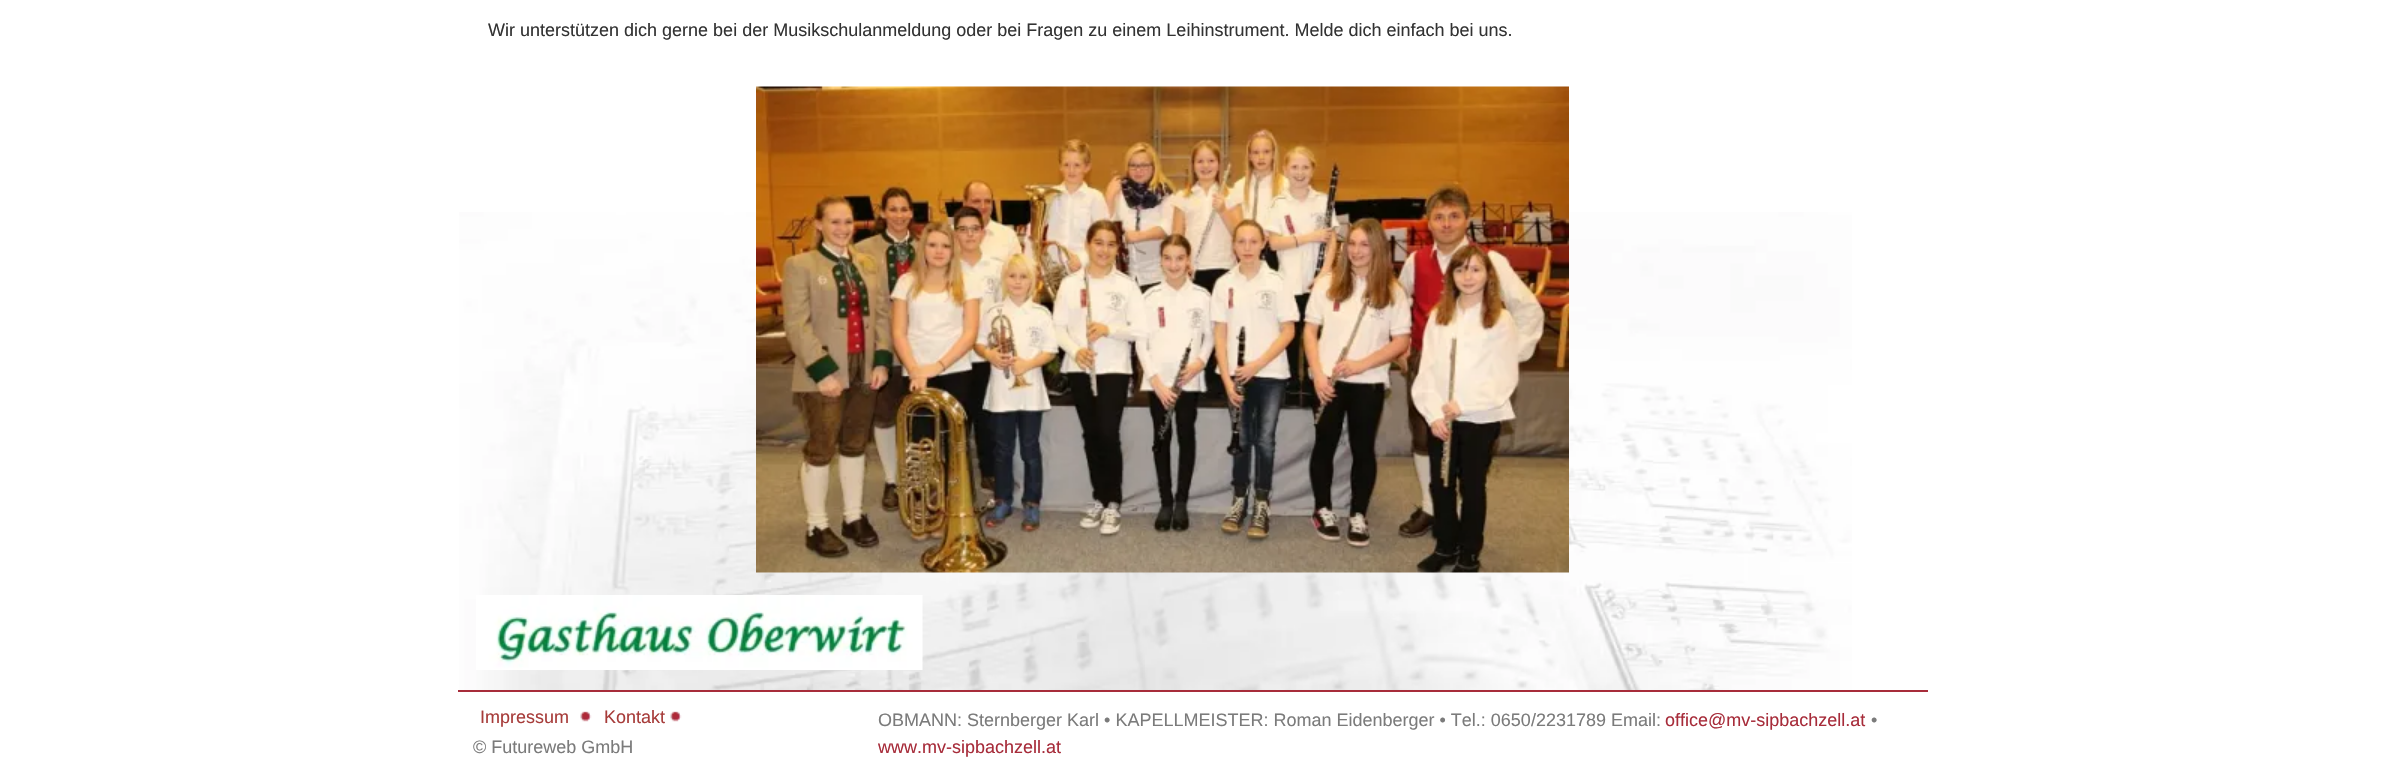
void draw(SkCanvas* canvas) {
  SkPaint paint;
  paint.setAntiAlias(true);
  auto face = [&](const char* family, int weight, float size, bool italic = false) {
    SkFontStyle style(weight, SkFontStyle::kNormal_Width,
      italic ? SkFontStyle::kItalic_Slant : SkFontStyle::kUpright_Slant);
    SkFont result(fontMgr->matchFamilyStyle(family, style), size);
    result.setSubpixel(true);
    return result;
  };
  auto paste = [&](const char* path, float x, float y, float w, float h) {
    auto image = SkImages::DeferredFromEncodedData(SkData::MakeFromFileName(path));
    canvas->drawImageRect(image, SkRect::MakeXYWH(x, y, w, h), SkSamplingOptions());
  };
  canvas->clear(0xffffffff);
  paste("img/1.png", 459, 212, 1393, 478);
  paste("img/2.png", 756, 86, 813, 487);
  paste("img/3.png", 476, 595, 447, 75);
  paint.setColor(0xffa72c3a);
  canvas->drawRect(SkRect::MakeXYWH(458, 690, 1470, 2), paint);
  paste("img/4.png", 580, 711, 12, 11);
  paste("img/4.png", 670, 711, 12, 11);
  auto f0 = face("Liberation Sans", 400, 18);
  paint.setColor(0xff333333);
  canvas->drawString("Wir unterstützen dich gerne bei der Musikschulanmeldung oder bei Fragen zu einem Leihinstrument. Melde dich einfach bei uns.", 488, 36, f0, paint);
  paint.setColor(0xffa73c3a);
  canvas->drawString("Impressum", 480, 723, f0, paint);
  canvas->drawString("Kontakt", 604, 723, f0, paint);
  paint.setColor(0xff7b7b7b);
  canvas->drawString("OBMANN: Sternberger Karl • KAPELLMEISTER: Roman Eidenberger • Tel.: 0650/2231789 Email:", 878, 726, f0, paint);
  paint.setColor(0xffa72c3a);
  canvas->drawString("office@mv-sipbachzell.at", 1665, 726, f0, paint);
  paint.setColor(0xff7b7b7b);
  canvas->drawString("•", 1871, 726, f0, paint);
  paint.setColor(0xffa72c3a);
  canvas->drawString("www.mv-sipbachzell.at", 878, 753, f0, paint);
  paint.setColor(0xff7b7b7b);
  canvas->drawString("© Futureweb GmbH", 473, 753, f0, paint);
}
